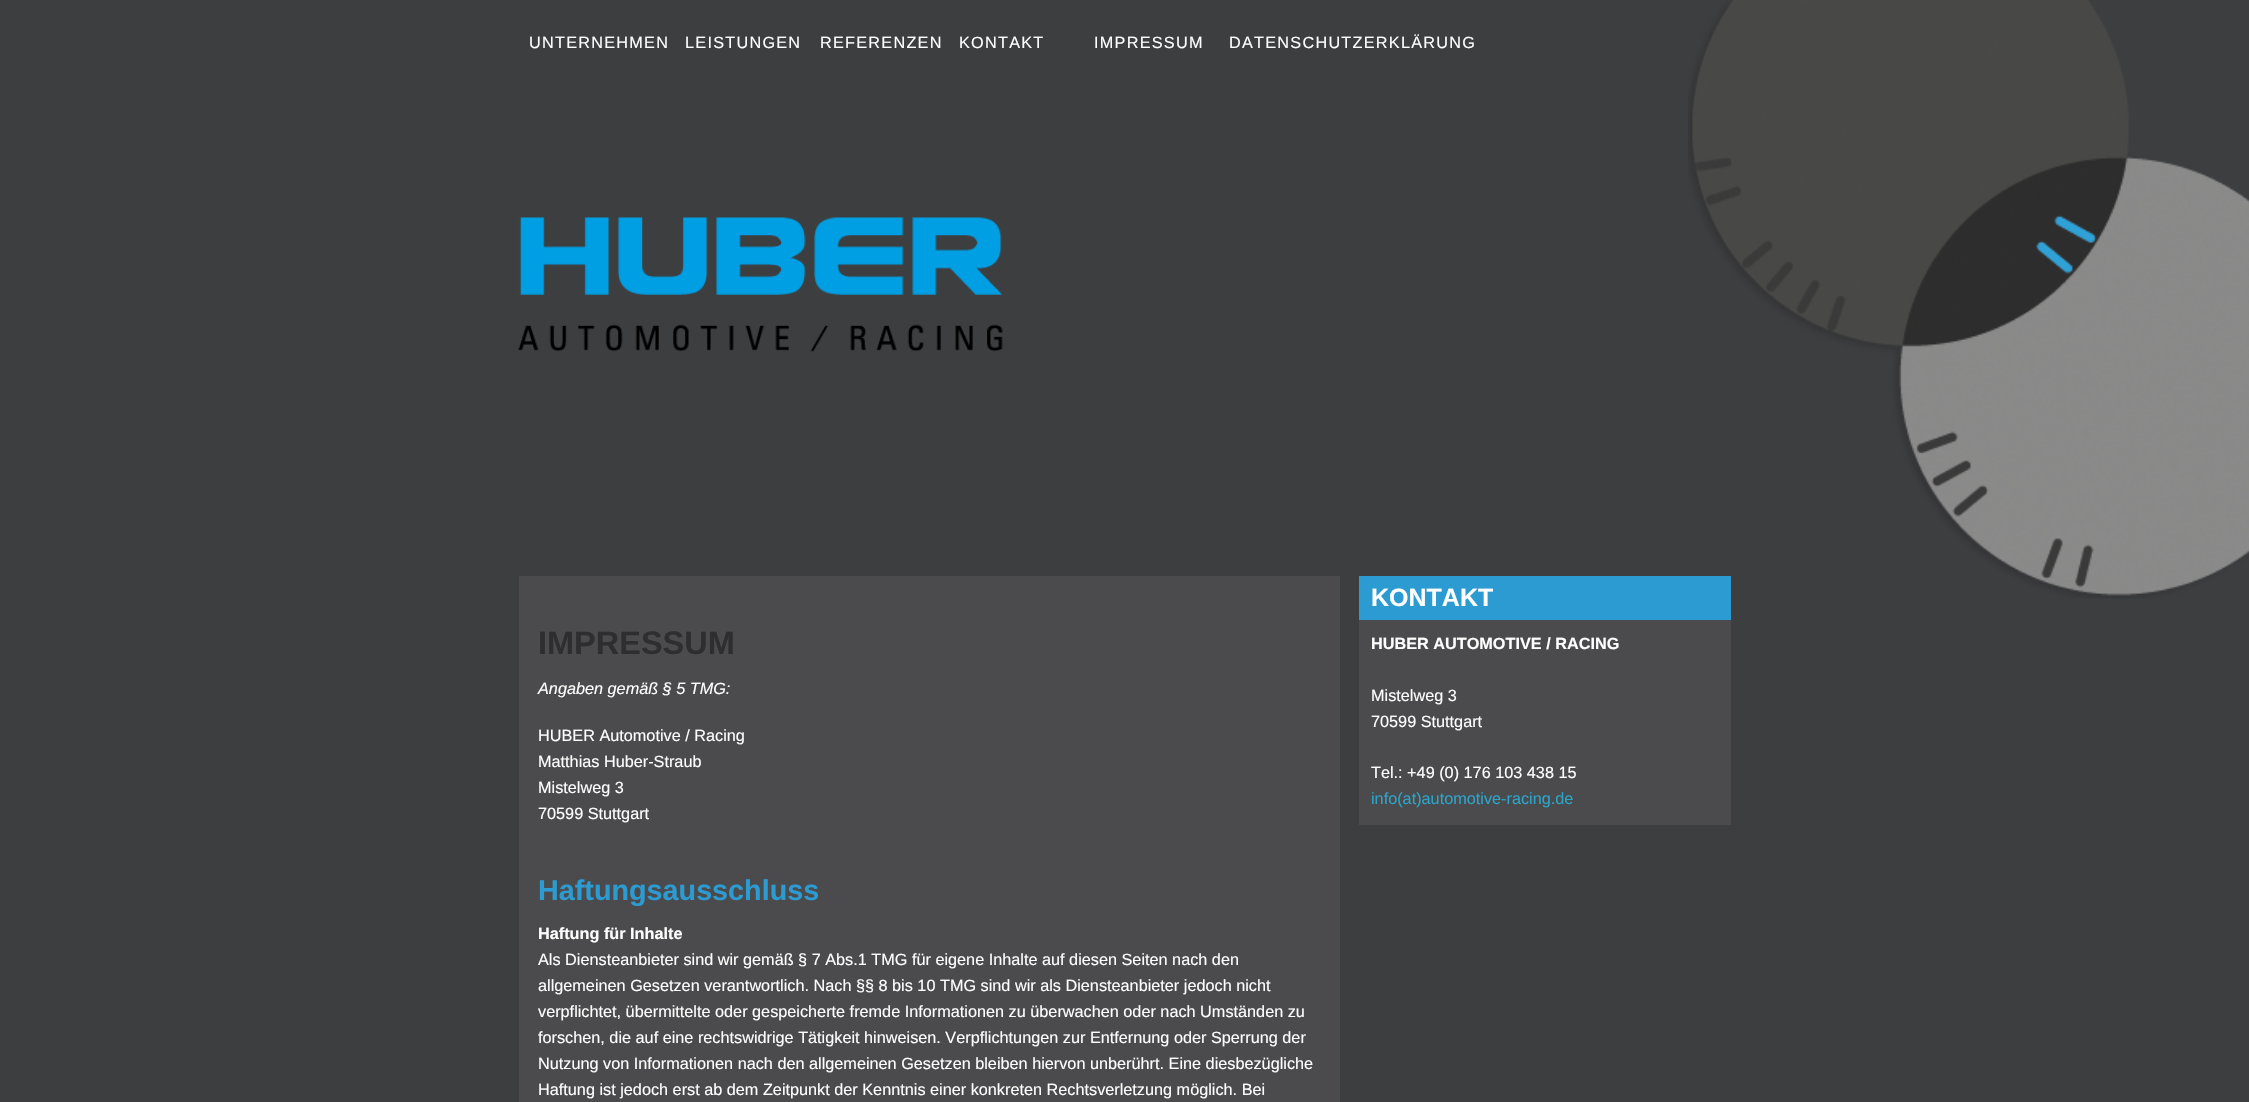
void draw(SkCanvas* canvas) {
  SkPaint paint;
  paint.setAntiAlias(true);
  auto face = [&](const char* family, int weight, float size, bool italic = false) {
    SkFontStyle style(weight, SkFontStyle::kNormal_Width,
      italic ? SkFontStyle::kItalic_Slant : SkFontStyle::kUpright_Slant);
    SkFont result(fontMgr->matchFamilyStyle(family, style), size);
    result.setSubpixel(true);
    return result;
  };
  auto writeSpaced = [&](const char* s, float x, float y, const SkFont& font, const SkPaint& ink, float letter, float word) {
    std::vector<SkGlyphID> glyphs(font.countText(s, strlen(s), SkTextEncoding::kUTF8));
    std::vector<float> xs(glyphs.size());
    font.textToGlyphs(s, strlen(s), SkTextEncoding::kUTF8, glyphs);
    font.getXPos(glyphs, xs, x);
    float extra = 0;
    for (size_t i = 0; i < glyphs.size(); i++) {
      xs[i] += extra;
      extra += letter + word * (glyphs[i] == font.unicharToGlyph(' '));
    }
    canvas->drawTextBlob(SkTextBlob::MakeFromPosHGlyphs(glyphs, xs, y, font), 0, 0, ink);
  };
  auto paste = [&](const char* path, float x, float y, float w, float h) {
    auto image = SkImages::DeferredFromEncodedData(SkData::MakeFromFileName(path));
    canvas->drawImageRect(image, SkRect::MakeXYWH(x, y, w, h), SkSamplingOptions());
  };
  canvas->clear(0xff3d3e40);
  paste("img/1.png", 1688, 0, 561, 599);
  paste("img/2.png", 518, 217, 485, 135);
  {
    const struct { float x, y, w, h; SkColor color; } items[] = {
      {519, 576, 821, 526, 0xff4b4b4d},
      {1359, 620, 372, 205, 0xff4b4b4d},
      {1359, 576, 372, 44, 0xff2c9bd2},
    };
    for (auto [x, y, w, h, color] : items) {
      paint.setColor(color);
      canvas->drawRect(SkRect::MakeXYWH(x, y, w, h), paint);
    }
  }
  auto f0 = face("Liberation Sans", 400, 16.25f);
  paint.setColor(0xffffffff);
  {
    const struct { const char* s; float x, y; } items[] = {
      {"UNTERNEHMEN", 529, 48},
      {"LEISTUNGEN", 685, 48},
      {"REFERENZEN", 820, 48},
      {"KONTAKT", 959, 48},
      {"IMPRESSUM", 1094, 48},
      {"DATENSCHUTZERKLÄRUNG", 1229, 48},
    };
    for (auto [s, x, y] : items) {
      writeSpaced(s, x, y, f0, paint, 1.25f, 0);
    }
  }
  auto f1 = face("Liberation Sans", 700, 32.5f);
  paint.setColor(0xff2e2d30);
  canvas->drawString("IMPRESSUM", 538, 654, f1, paint);
  auto f2 = face("Liberation Sans", 400, 16.25f, true);
  paint.setColor(0xffffffff);
  canvas->drawString("Angaben gemäß § 5 TMG:", 538, 694, f2, paint);
  {
    const struct { const char* s; float x, y; } items[] = {
      {"HUBER Automotive / Racing", 538, 741},
      {"Matthias Huber-Straub", 538, 767},
      {"Mistelweg 3", 538, 793},
      {"70599 Stuttgart", 538, 819},
    };
    for (auto [s, x, y] : items) {
      canvas->drawString(s, x, y, f0, paint);
    }
  }
  auto f3 = face("Liberation Sans", 700, 28.75f);
  paint.setColor(0xff2c9bd2);
  canvas->drawString("Haftungsausschluss", 538, 900, f3, paint);
  auto f4 = face("Liberation Sans", 700, 16.25f);
  paint.setColor(0xffffffff);
  canvas->drawString("Haftung für Inhalte", 538, 939, f4, paint);
  {
    const struct { const char* s; float x, y; } items[] = {
      {"Als Diensteanbieter sind wir gemäß § 7 Abs.1 TMG für eigene Inhalte auf diesen Seiten nach den", 538, 965},
      {"allgemeinen Gesetzen verantwortlich. Nach §§ 8 bis 10 TMG sind wir als Diensteanbieter jedoch nicht", 538, 991},
      {"verpflichtet, übermittelte oder gespeicherte fremde Informationen zu überwachen oder nach Umständen zu", 538, 1017},
      {"forschen, die auf eine rechtswidrige Tätigkeit hinweisen. Verpflichtungen zur Entfernung oder Sperrung der", 538, 1043},
      {"Nutzung von Informationen nach den allgemeinen Gesetzen bleiben hiervon unberührt. Eine diesbezügliche", 538, 1069},
      {"Haftung ist jedoch erst ab dem Zeitpunkt der Kenntnis einer konkreten Rechtsverletzung möglich. Bei", 538, 1095},
    };
    for (auto [s, x, y] : items) {
      canvas->drawString(s, x, y, f0, paint);
    }
  }
  auto f5 = face("Liberation Sans", 700, 25);
  canvas->drawString("KONTAKT", 1371, 606, f5, paint);
  canvas->drawString("HUBER AUTOMOTIVE / RACING", 1371, 649, f4, paint);
  {
    const struct { const char* s; float x, y; } items[] = {
      {"Mistelweg 3", 1371, 701},
      {"70599 Stuttgart", 1371, 727},
      {"Tel.: +49 (0) 176 103 438 15", 1371, 778},
    };
    for (auto [s, x, y] : items) {
      canvas->drawString(s, x, y, f0, paint);
    }
  }
  paint.setColor(0xff2ba6cb);
  canvas->drawString("info(at)automotive-racing.de", 1371, 804, f0, paint);
}
